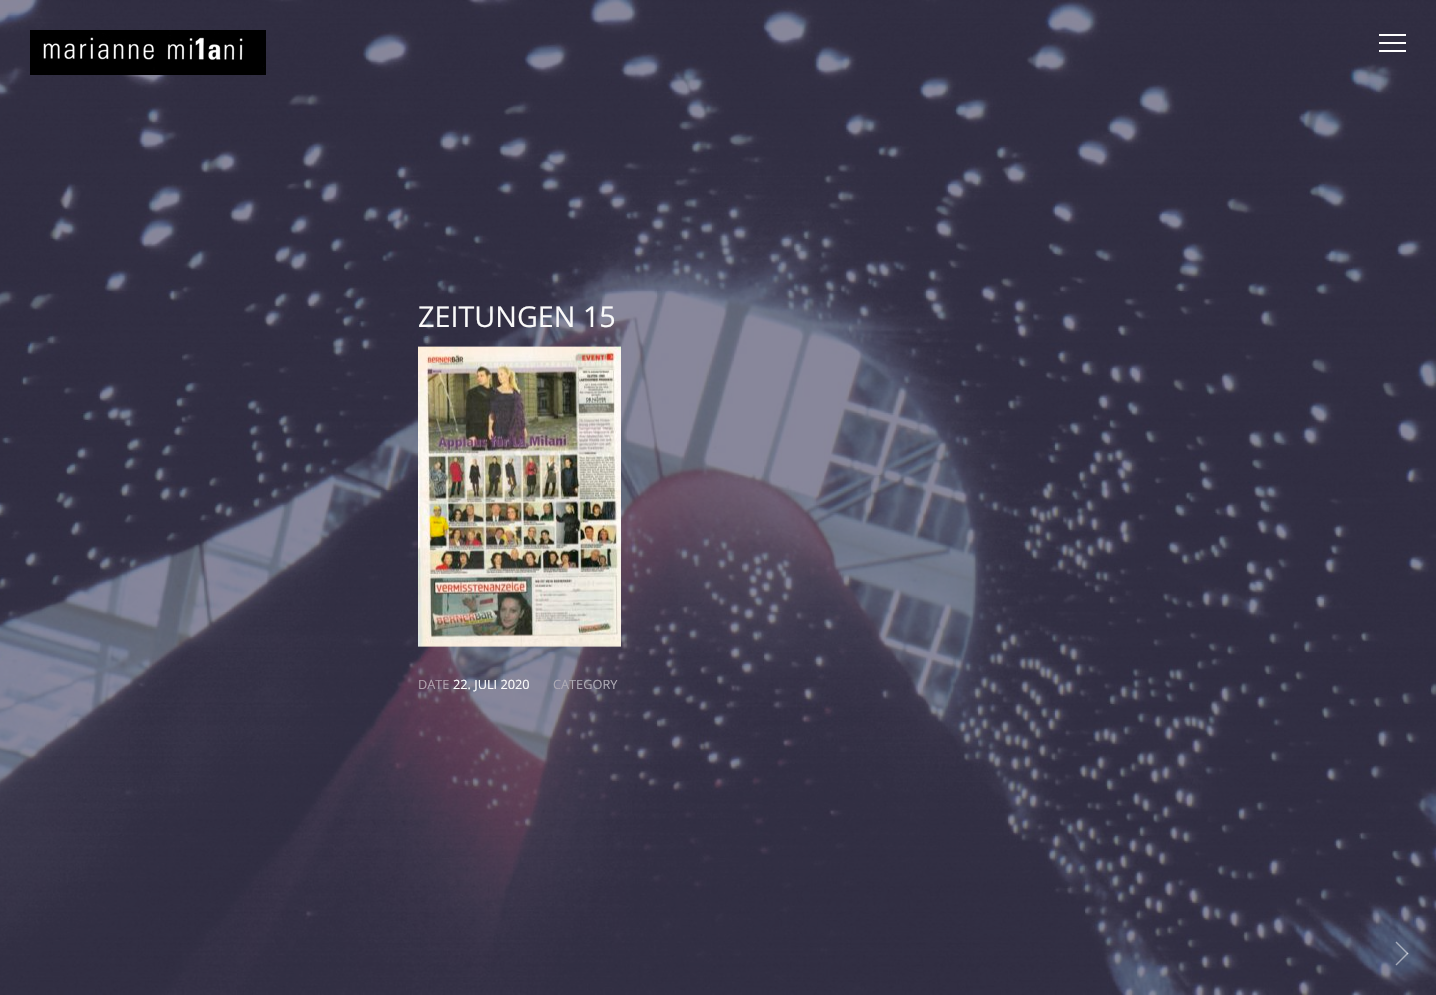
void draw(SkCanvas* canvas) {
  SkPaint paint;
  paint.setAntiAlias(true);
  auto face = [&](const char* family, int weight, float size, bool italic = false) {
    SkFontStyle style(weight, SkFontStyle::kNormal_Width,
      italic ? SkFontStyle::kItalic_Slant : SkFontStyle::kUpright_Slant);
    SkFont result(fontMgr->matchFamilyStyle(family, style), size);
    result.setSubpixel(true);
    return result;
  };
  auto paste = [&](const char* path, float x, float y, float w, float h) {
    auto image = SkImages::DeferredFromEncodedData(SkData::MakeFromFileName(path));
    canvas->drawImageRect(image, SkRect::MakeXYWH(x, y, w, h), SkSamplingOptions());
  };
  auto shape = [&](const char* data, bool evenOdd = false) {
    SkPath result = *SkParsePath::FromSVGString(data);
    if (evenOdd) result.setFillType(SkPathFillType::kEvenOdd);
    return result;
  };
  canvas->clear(0xffffffff);
  paste("img/1.png", 0, 0, 1436, 995);
  paste("img/2.png", 30, 30, 236, 45);
  {
    const struct { float x, y, w, h; SkColor color; } items[] = {
      {1379, 42, 27, 2, 0xffffffff},
      {1379, 34, 27, 2, 0xffffffff},
      {1379, 50, 27, 2, 0xffffffff},
    };
    for (auto [x, y, w, h, color] : items) {
      paint.setColor(color);
      canvas->drawRect(SkRect::MakeXYWH(x, y, w, h), paint);
    }
  }
  paste("img/3.png", 418, 346, 203, 301);
  paint.setColor(0x80ffffff);
  canvas->drawPath(shape("M1408.5 953.5L1407.5 954.5L1395.5 942.5L1396.5 941.5Z"), paint);
  canvas->drawPath(shape("M1407.5 952.5L1408.5 953.5L1396.5 965.5L1395.5 964.5Z"), paint);
  auto f0 = face("Open Sans", 400, 28.75f);
  paint.setColor(0xfffafafa);
  canvas->drawString("ZEITUNGEN 15", 418, 327, f0, paint);
  auto f1 = face("Open Sans", 400, 12.75f);
  paint.setColor(0xffafa1ad);
  canvas->drawString("DATE", 418, 689, f1, paint);
  paint.setColor(0xfffafafa);
  canvas->drawString("22. JULI 2020", 453, 689, f1, paint);
  paint.setColor(0xffaca9b3);
  canvas->drawString("CATEGORY", 553, 689, f1, paint);
}
